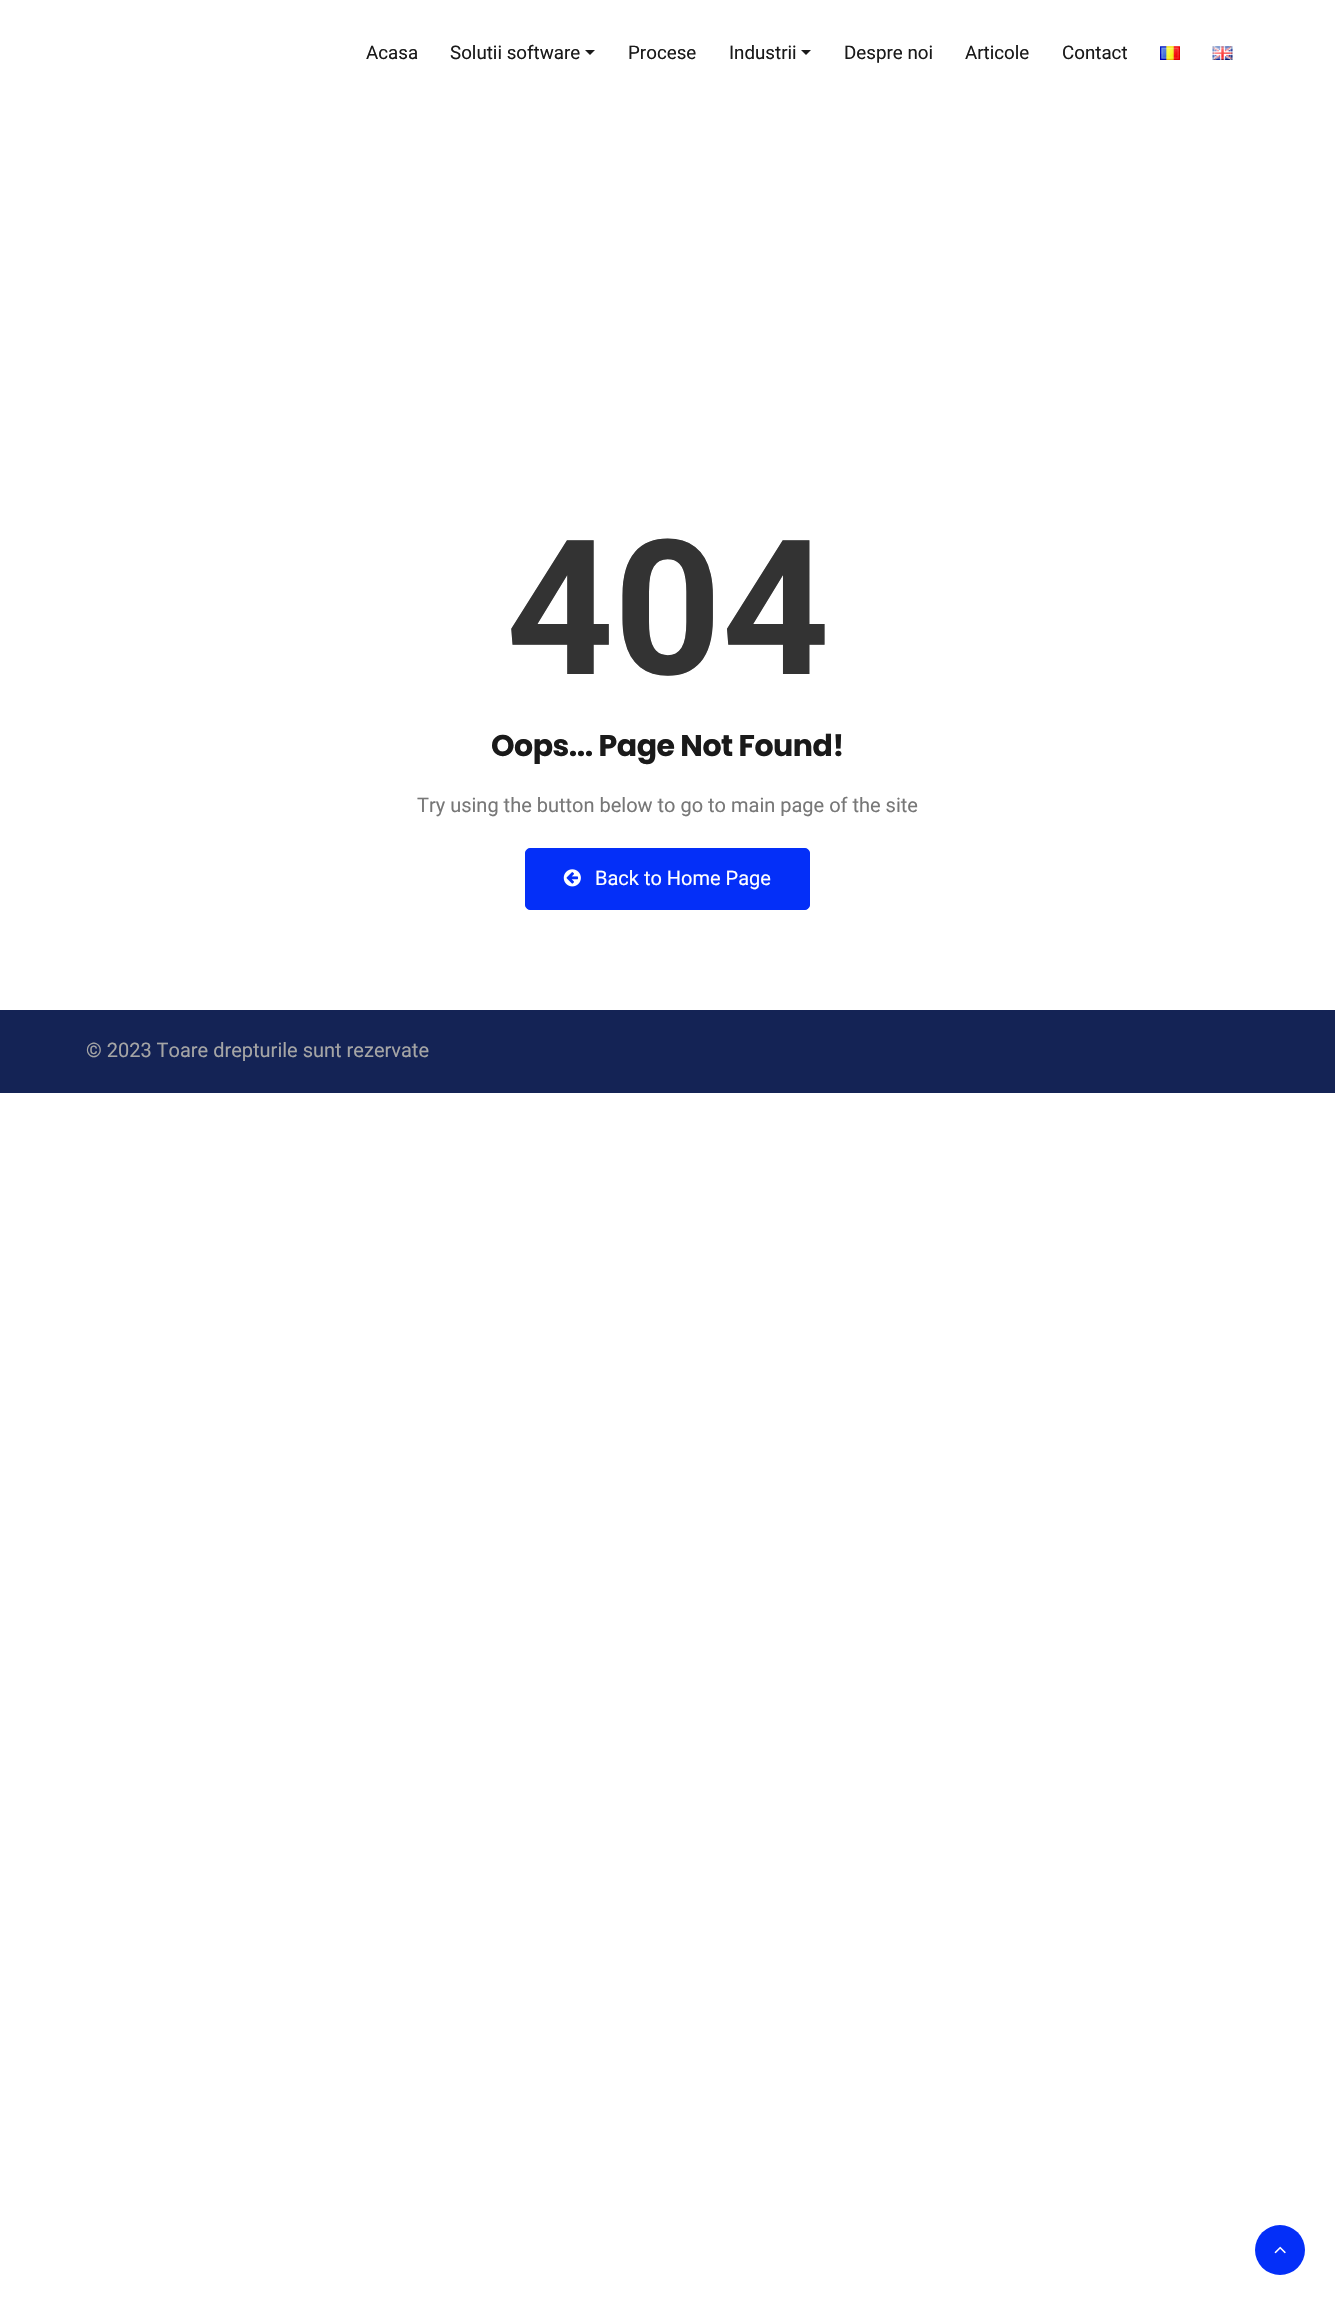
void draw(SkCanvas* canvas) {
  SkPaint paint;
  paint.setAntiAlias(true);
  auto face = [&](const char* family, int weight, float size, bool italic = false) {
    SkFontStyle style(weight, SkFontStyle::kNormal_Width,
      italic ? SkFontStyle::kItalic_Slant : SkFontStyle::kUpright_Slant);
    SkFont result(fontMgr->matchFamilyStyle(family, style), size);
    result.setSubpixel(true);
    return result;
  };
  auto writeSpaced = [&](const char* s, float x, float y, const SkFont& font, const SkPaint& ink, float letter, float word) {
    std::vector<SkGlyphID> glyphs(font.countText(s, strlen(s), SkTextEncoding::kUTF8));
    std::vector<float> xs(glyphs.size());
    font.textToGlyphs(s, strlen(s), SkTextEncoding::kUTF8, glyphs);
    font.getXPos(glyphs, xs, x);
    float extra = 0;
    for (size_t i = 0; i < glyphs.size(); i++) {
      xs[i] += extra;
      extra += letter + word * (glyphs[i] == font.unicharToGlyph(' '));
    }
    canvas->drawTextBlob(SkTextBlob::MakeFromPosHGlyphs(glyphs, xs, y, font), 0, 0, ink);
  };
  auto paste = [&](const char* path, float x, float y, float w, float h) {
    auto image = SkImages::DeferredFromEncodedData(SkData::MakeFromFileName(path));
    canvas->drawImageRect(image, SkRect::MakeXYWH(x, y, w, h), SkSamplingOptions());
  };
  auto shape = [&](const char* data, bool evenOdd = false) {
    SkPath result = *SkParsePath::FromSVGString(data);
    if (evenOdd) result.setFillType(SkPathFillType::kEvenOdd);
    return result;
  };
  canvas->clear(0xffffffff);
  paint.setColor(0xff1a1a1a);
  canvas->drawPath(shape("M585 50H595L590 55Z"), paint);
  canvas->drawPath(shape("M801 50H811L806 55Z"), paint);
  paste("img/1.png", 1160, 46, 20, 14);
  paste("img/2.png", 1212, 46, 21, 14);
  paint.setColor(0xff042ff8);
  canvas->drawRoundRect(SkRect::MakeXYWH(525.5f, 848.5f, 284, 61), 4.5f, 4.5f, paint);
  paint.setStroke(true);
  paint.setStrokeWidth(1);
  canvas->drawRoundRect(SkRect::MakeXYWH(525.5f, 848.5f, 284, 61), 4.5f, 4.5f, paint);
  paste("img/3.png", 563, 869, 18, 18);
  paint.setStroke(false);
  paint.setColor(0xff142355);
  canvas->drawRect(SkRect::MakeXYWH(0, 1010, 1335, 83), paint);
  paint.setColor(0xff042ff8);
  canvas->drawCircle(1280, 2250, 25, paint);
  paste("img/4.png", 1274, 2246, 12, 8);
  auto f0 = face("Roboto", 400, 18.75f);
  paint.setColor(0xff1a1a1a);
  {
    const struct { const char* s; float x, y; } items[] = {
      {"Acasa", 366, 59},
      {"Solutii software", 450, 59},
      {"Procese", 628, 59},
      {"Industrii", 729, 59},
      {"Despre noi", 844, 59},
      {"Articole", 965, 59},
      {"Contact", 1062, 59},
    };
    for (auto [s, x, y] : items) {
      canvas->drawString(s, x, y, f0, paint);
    }
  }
  auto f1 = face("Roboto", 700, 188);
  paint.setColor(0xff333333);
  canvas->drawString("404", 506, 674, f1, paint);
  auto f2 = face("Poppins", 700, 30);
  paint.setColor(0xff1a1a1a);
  writeSpaced("Oops... Page Not Found!", 491, 756, f2, paint, -0.5f, 0);
  auto f3 = face("Roboto", 400, 20);
  paint.setColor(0xff777777);
  canvas->drawString("Try using the button below to go to main page of the site", 417, 812, f3, paint);
  paint.setColor(0xffffffff);
  canvas->drawString("Back to Home Page", 595, 885, f3, paint);
  paint.setColor(0xffa5a5a5);
  canvas->drawString("© 2023 Toare drepturile sunt rezervate", 86, 1057, f3, paint);
}
